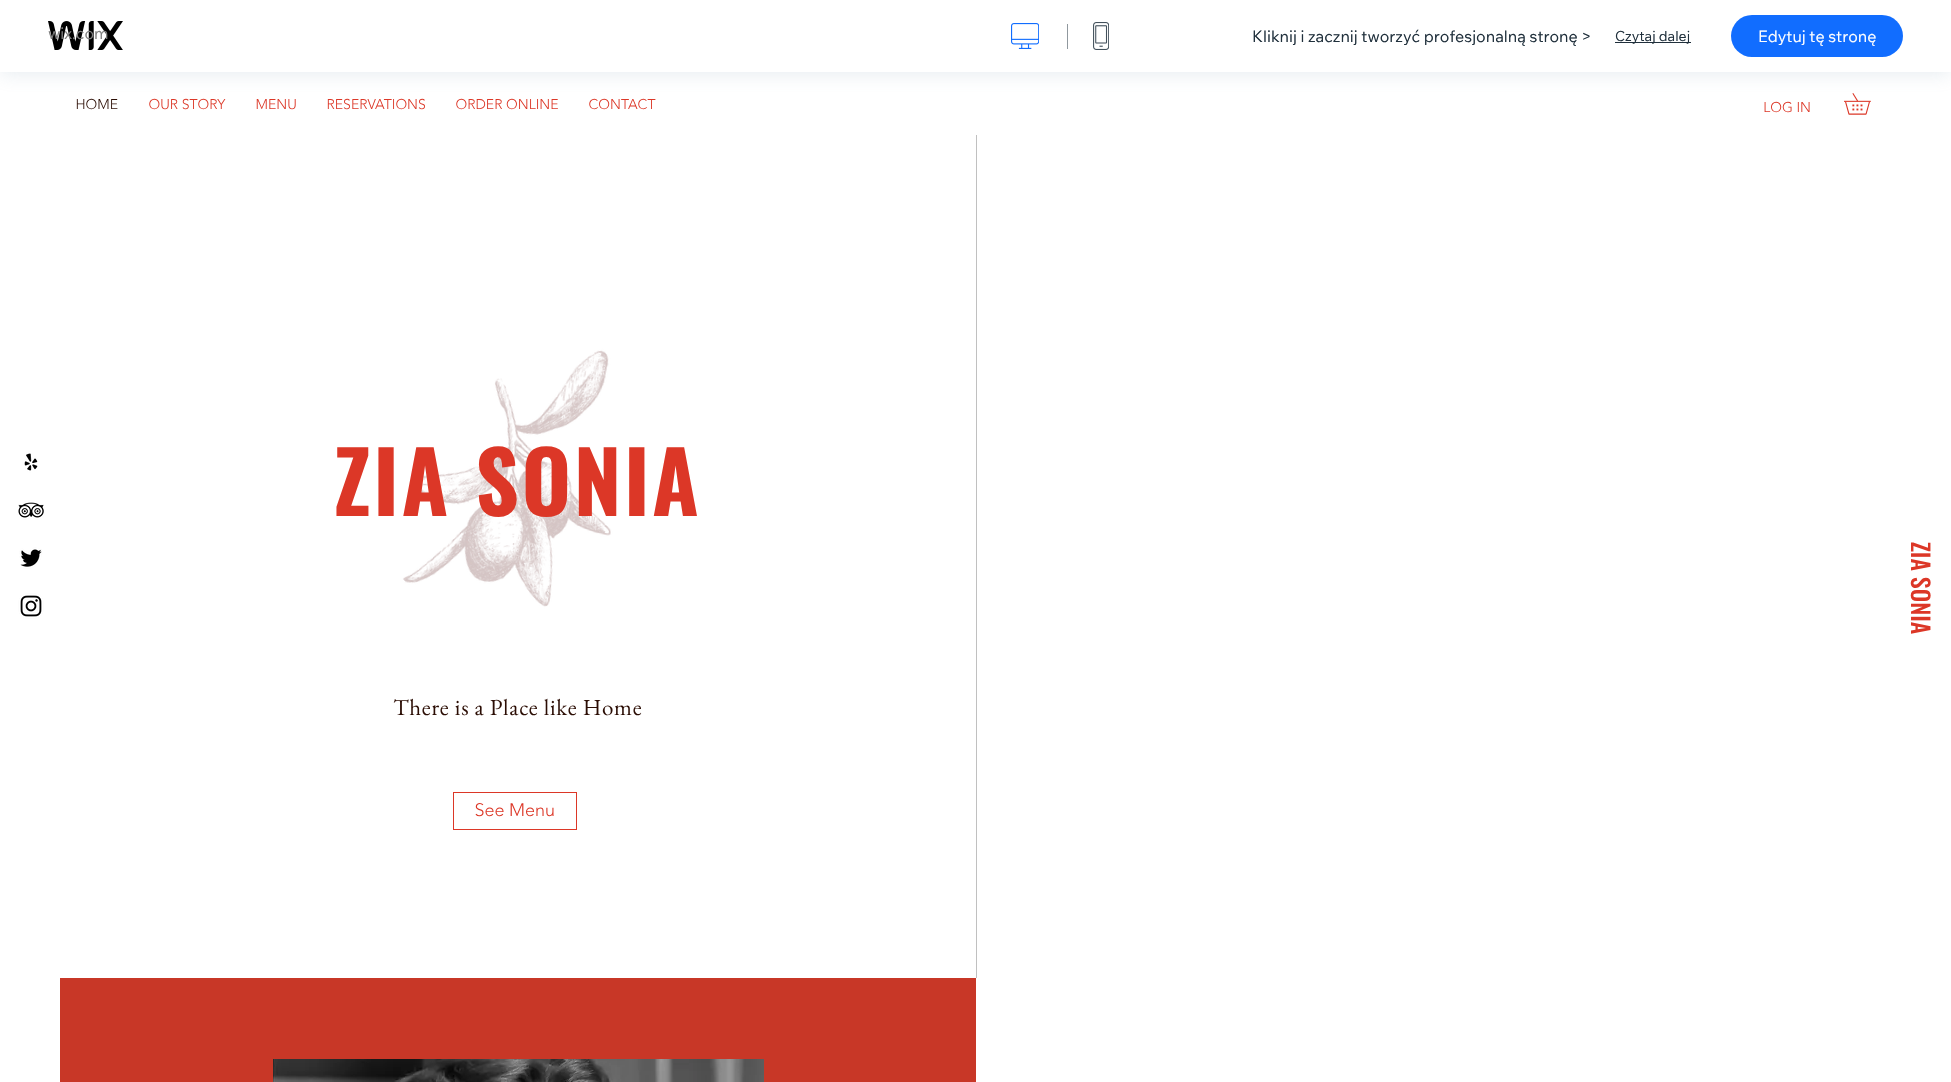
void draw(SkCanvas* canvas) {
  SkPaint paint;
  paint.setAntiAlias(true);
  auto face = [&](const char* family, int weight, float size, bool italic = false) {
    SkFontStyle style(weight, SkFontStyle::kNormal_Width,
      italic ? SkFontStyle::kItalic_Slant : SkFontStyle::kUpright_Slant);
    SkFont result(fontMgr->matchFamilyStyle(family, style), size);
    result.setSubpixel(true);
    return result;
  };
  auto paste = [&](const char* path, float x, float y, float w, float h) {
    auto image = SkImages::DeferredFromEncodedData(SkData::MakeFromFileName(path));
    canvas->drawImageRect(image, SkRect::MakeXYWH(x, y, w, h), SkSamplingOptions());
  };
  canvas->clear(0xffffffff);
  paste("img/4.png", 0, 72, 1951, 1010);
  paint.setColor(0x3381a2b6);
  paint.setMaskFilter(SkMaskFilter::MakeBlur(kNormal_SkBlurStyle, 9));
  canvas->drawRect(SkRect::MakeXYWH(0, 2, 1951, 72), paint);
  paint.setMaskFilter(nullptr);
  paint.setColor(0xffffffff);
  canvas->drawRect(SkRect::MakeXYWH(0, 0, 1951, 72), paint);
  paste("img/1.png", 48, 21, 75, 29);
  paste("img/2.png", 1011, 23, 28, 26);
  paint.setColor(0xff90989e);
  canvas->drawRect(SkRect::MakeXYWH(1067, 24, 1, 25), paint);
  paste("img/3.png", 1093, 22, 16, 28);
  paint.setColor(0xff20303c);
  canvas->drawRect(SkRect::MakeXYWH(1615, 42, 76, 1), paint);
  paint.setColor(0xff116dff);
  canvas->drawRoundRect(SkRect::MakeXYWH(1731, 15, 172, 42), 21, 21, paint);
  auto f0 = face("Wix Madefor Text", 400, 16);
  paint.setColor(0xff808080);
  canvas->drawString("wix.com", 48, 39, f0, paint);
  paint.setColor(0xff20303c);
  canvas->drawString("Kliknij i zacznij tworzyć profesjonalną stronę >", 1252, 42, f0, paint);
  auto f1 = face("Wix Madefor Text", 400, 14);
  canvas->drawString("Czytaj dalej", 1615, 41, f1, paint);
  paint.setColor(0xffffffff);
  canvas->drawString("Edytuj tę stronę", 1758, 42, f0, paint);
}
